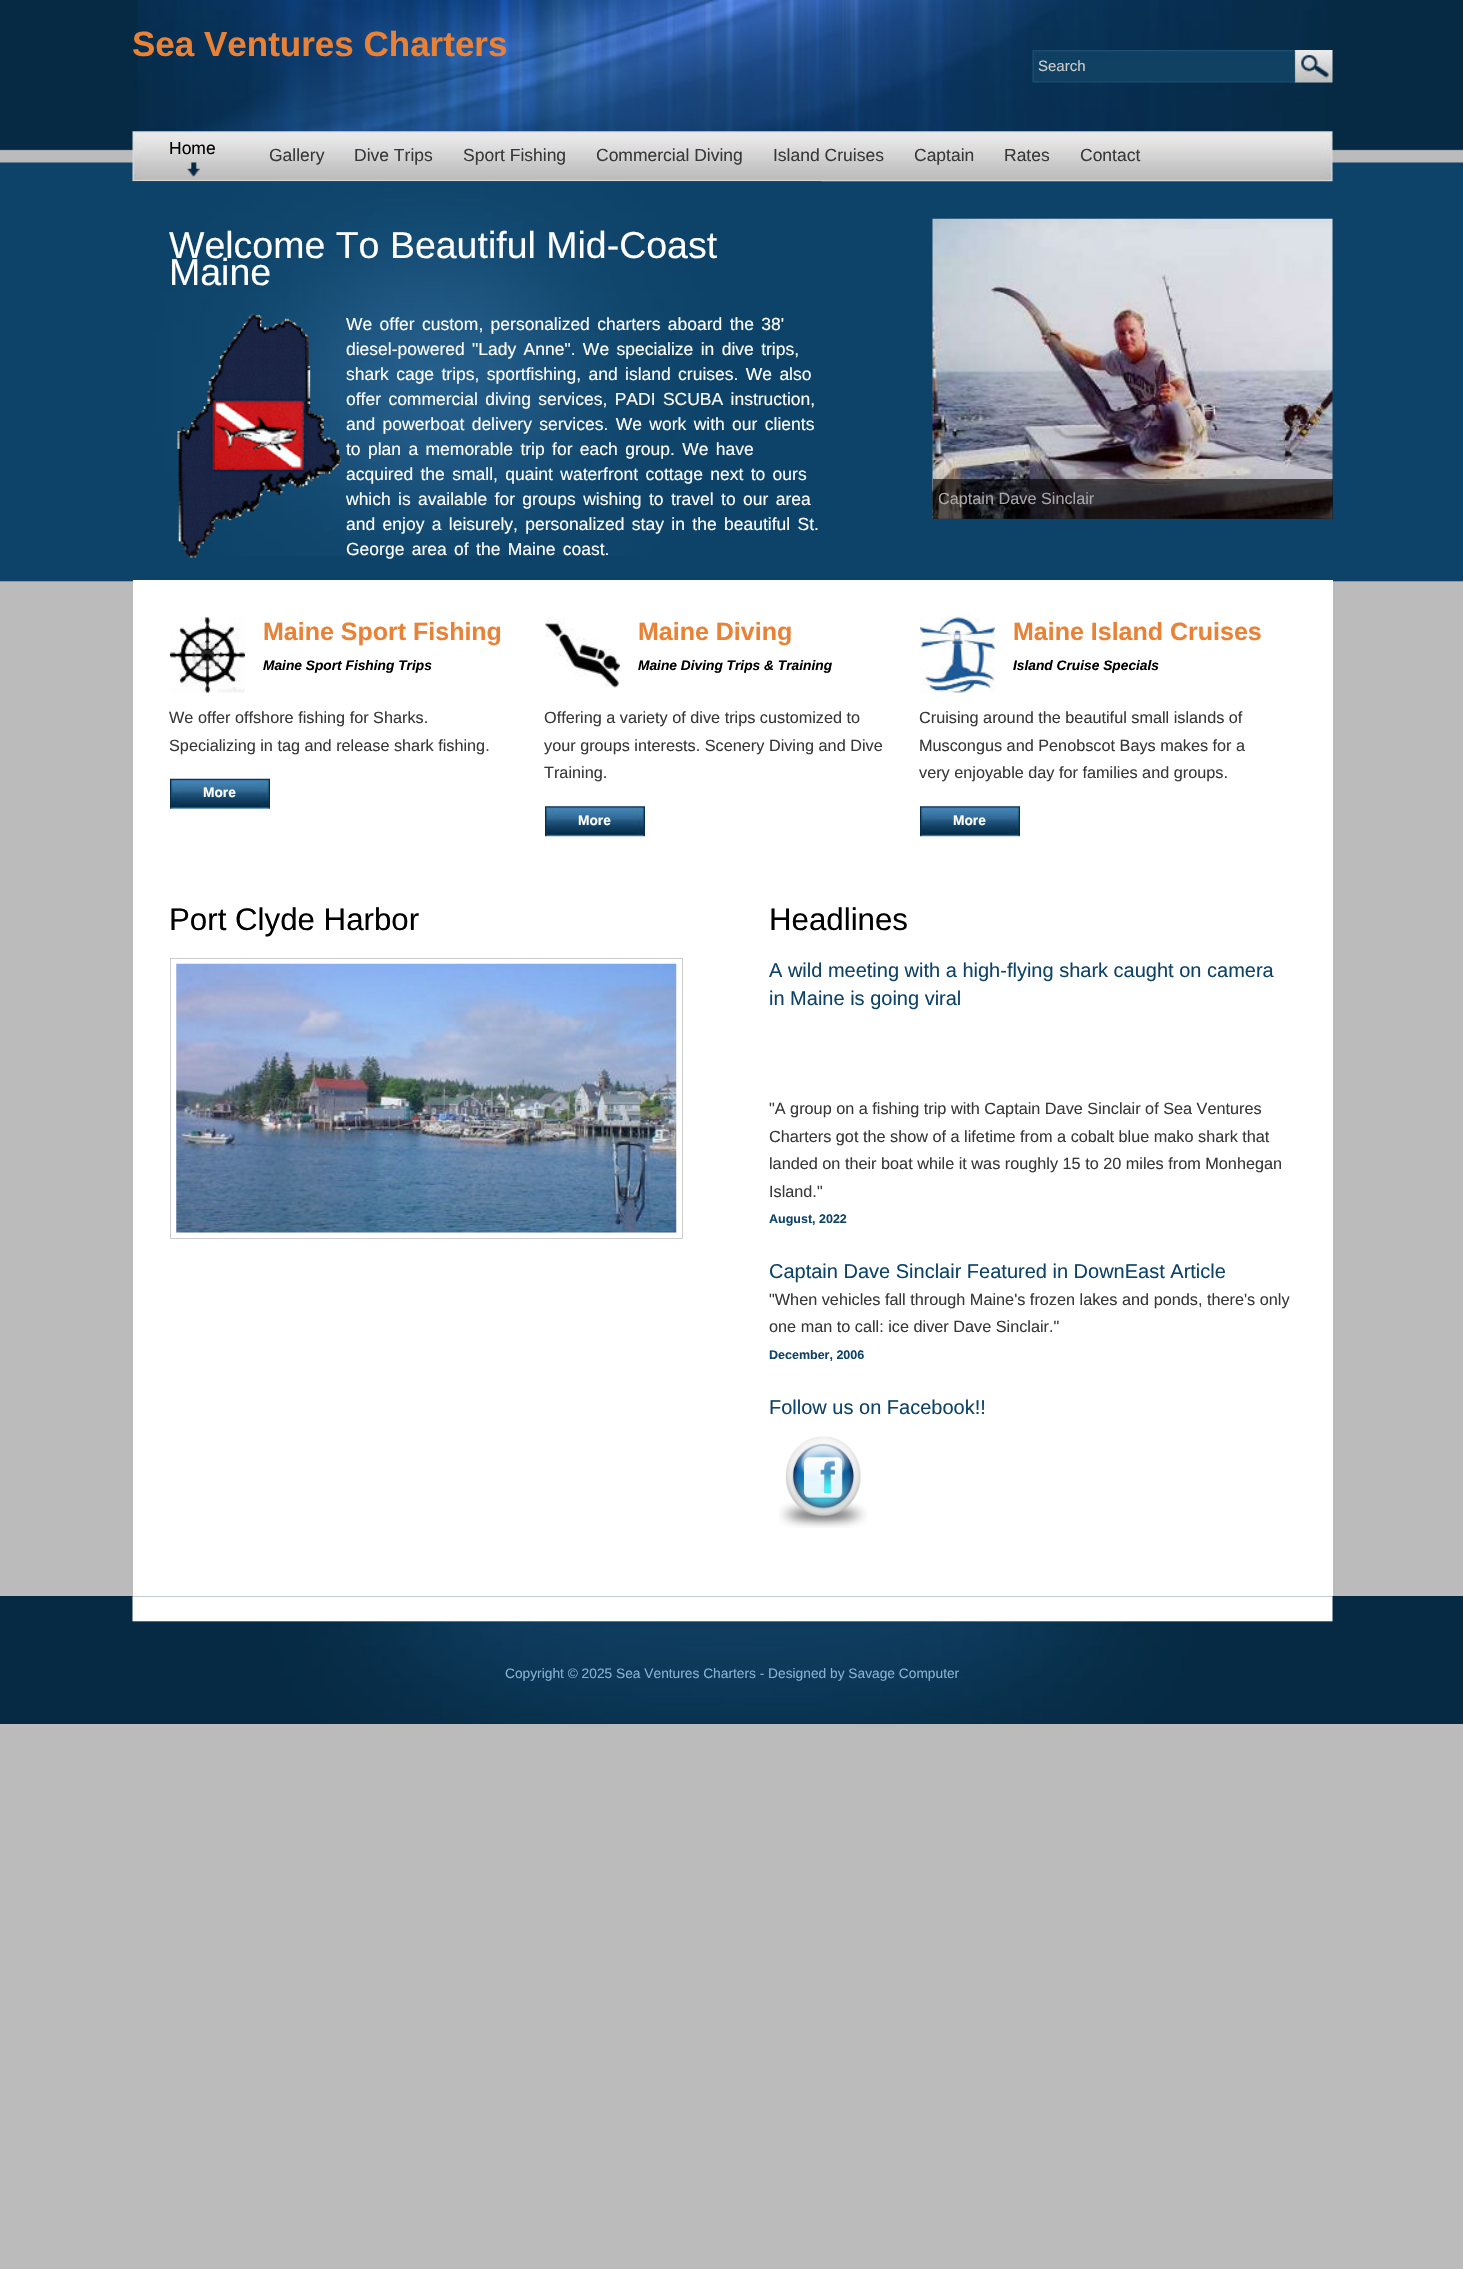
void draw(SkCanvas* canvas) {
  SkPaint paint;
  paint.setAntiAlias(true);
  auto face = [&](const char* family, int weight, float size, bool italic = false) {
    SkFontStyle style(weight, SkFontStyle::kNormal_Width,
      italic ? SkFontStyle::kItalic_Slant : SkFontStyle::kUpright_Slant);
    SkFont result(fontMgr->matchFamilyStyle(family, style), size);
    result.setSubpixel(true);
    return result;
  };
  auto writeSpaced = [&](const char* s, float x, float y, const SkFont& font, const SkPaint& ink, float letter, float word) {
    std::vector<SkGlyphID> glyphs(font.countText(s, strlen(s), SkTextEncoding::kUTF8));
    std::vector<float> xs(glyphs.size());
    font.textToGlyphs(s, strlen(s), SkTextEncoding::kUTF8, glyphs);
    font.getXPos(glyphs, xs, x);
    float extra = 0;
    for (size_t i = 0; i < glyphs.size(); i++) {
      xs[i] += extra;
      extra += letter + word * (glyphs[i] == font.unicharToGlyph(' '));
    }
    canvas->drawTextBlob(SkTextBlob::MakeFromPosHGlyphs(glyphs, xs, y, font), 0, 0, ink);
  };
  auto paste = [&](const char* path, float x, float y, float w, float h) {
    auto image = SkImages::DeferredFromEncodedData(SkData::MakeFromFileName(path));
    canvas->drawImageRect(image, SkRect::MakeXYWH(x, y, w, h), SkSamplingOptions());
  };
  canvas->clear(0xffbbbbbb);
  paste("img/1.png", 0, 0, 1463, 582);
  paste("img/2.png", 132, 0, 1201, 150);
  paste("img/3.png", 1032, 50, 301, 33);
  paste("img/4.png", 132, 131, 1201, 51);
  paste("img/5.png", 186, 162, 14, 15);
  paste("img/6.png", 132, 181, 690, 375);
  paste("img/7.png", 177, 313, 165, 245);
  paste("img/8.png", 932, 218, 401, 301);
  paint.setColor(0x99000000);
  canvas->drawRect(SkRect::MakeXYWH(933, 479, 400, 40), paint);
  paint.setColor(0xffffffff);
  canvas->drawRect(SkRect::MakeXYWH(133, 580, 1200, 1016), paint);
  paste("img/9.png", 170, 617, 75, 76);
  paste("img/10.png", 170, 778, 100, 31);
  paste("img/11.png", 545, 617, 75, 71);
  paste("img/12.png", 545, 806, 100, 31);
  paste("img/13.png", 920, 617, 75, 76);
  paste("img/14.png", 920, 806, 100, 31);
  paint.setStroke(true);
  paint.setStrokeWidth(1);
  paint.setColor(0xffcccccc);
  canvas->drawRect(SkRect::MakeXYWH(170.5f, 958.5f, 512, 280), paint);
  paste("img/15.png", 176, 963, 501, 270);
  paste("img/16.png", 779, 1436, 88, 92);
  paint.setStroke(false);
  paint.setColor(0xff062a44);
  canvas->drawRect(SkRect::MakeXYWH(0, 1596, 1463, 128), paint);
  paste("img/17.png", 132, 1596, 1201, 128);
  auto f0 = face("Liberation Sans", 700, 35);
  paint.setColor(0xffe98236);
  canvas->drawString("Sea Ventures Charters", 132, 56, f0, paint);
  auto f1 = face("Liberation Sans", 400, 15);
  paint.setColor(0xffcccccc);
  canvas->drawString("Search", 1038, 71, f1, paint);
  auto f2 = face("Liberation Sans", 400, 17.5f);
  paint.setColor(0xff000000);
  canvas->drawString("Home", 169, 154, f2, paint);
  paint.setColor(0xff383838);
  {
    const struct { const char* s; float x, y; } items[] = {
      {"Gallery", 269, 161},
      {"Dive Trips", 354, 161},
      {"Sport Fishing", 463, 161},
      {"Commercial Diving", 596, 161},
      {"Island Cruises", 773, 161},
      {"Captain", 914, 161},
      {"Rates", 1004, 161},
      {"Contact", 1080, 161},
    };
    for (auto [s, x, y] : items) {
      canvas->drawString(s, x, y, f2, paint);
    }
  }
  auto f3 = face("Liberation Sans", 400, 37.5f);
  paint.setColor(0xffffffff);
  canvas->drawString("Welcome To Beautiful Mid-Coast", 169, 258, f3, paint);
  canvas->drawString("Maine", 169, 285, f3, paint);
  {
    const struct { const char* s; float x, y; } items[] = {
      {"We offer custom, personalized charters aboard the 38'", 346, 330},
      {"diesel-powered \"Lady Anne\". We specialize in dive trips,", 346, 355},
      {"shark cage trips, sportfishing, and island cruises. We also", 346, 380},
      {"offer commercial diving services, PADI SCUBA instruction,", 346, 405},
      {"and powerboat delivery services. We work with our clients", 346, 430},
      {"to plan a memorable trip for each group. We have", 346, 455},
      {"acquired the small, quaint waterfront cottage next to ours", 346, 480},
      {"which is available for groups wishing to travel to our area", 346, 505},
      {"and enjoy a leisurely, personalized stay in the beautiful St.", 346, 530},
      {"George area of the Maine coast.", 346, 555},
    };
    for (auto [s, x, y] : items) {
      writeSpaced(s, x, y, f2, paint, 0, 2.5f);
    }
  }
  auto f4 = face("Liberation Sans", 400, 16.25f);
  paint.setColor(0xffa7a6a7);
  canvas->drawString("Captain Dave Sinclair", 938, 504, f4, paint);
  auto f5 = face("Liberation Sans", 700, 25);
  paint.setColor(0xffe98236);
  canvas->drawString("Maine Sport Fishing", 263, 640, f5, paint);
  auto f6 = face("Liberation Sans", 700, 13.75f, true);
  paint.setColor(0xff000000);
  canvas->drawString("Maine Sport Fishing Trips", 263, 670, f6, paint);
  paint.setColor(0xff383838);
  canvas->drawString("We offer offshore fishing for Sharks.", 169, 723, f4, paint);
  canvas->drawString("Specializing in tag and release shark fishing.", 169, 751, f4, paint);
  auto f7 = face("Liberation Sans", 700, 13.75f);
  paint.setColor(0xffffffff);
  canvas->drawString("More", 203, 797, f7, paint);
  paint.setColor(0xffe98236);
  canvas->drawString("Maine Diving", 638, 640, f5, paint);
  paint.setColor(0xff000000);
  canvas->drawString("Maine Diving Trips & Training", 638, 670, f6, paint);
  paint.setColor(0xff383838);
  {
    const struct { const char* s; float x, y; } items[] = {
      {"Offering a variety of dive trips customized to", 544, 723},
      {"your groups interests. Scenery Diving and Dive", 544, 751},
      {"Training.", 544, 778},
    };
    for (auto [s, x, y] : items) {
      canvas->drawString(s, x, y, f4, paint);
    }
  }
  paint.setColor(0xffffffff);
  canvas->drawString("More", 578, 825, f7, paint);
  paint.setColor(0xffe98236);
  canvas->drawString("Maine Island Cruises", 1013, 640, f5, paint);
  paint.setColor(0xff000000);
  canvas->drawString("Island Cruise Specials", 1013, 670, f6, paint);
  paint.setColor(0xff383838);
  {
    const struct { const char* s; float x, y; } items[] = {
      {"Cruising around the beautiful small islands of", 919, 723},
      {"Muscongus and Penobscot Bays makes for a", 919, 751},
      {"very enjoyable day for families and groups.", 919, 778},
    };
    for (auto [s, x, y] : items) {
      canvas->drawString(s, x, y, f4, paint);
    }
  }
  paint.setColor(0xffffffff);
  canvas->drawString("More", 953, 825, f7, paint);
  auto f8 = face("Liberation Sans", 400, 31.25f);
  paint.setColor(0xff000000);
  canvas->drawString("Port Clyde Harbor", 169, 930, f8, paint);
  canvas->drawString("Headlines", 769, 930, f8, paint);
  auto f9 = face("Liberation Sans", 400, 20);
  paint.setColor(0xff0e4369);
  canvas->drawString("A wild meeting with a high-flying shark caught on camera", 769, 977, f9, paint);
  canvas->drawString("in Maine is going viral", 769, 1005, f9, paint);
  paint.setColor(0xff383838);
  {
    const struct { const char* s; float x, y; } items[] = {
      {"\"A group on a fishing trip with Captain Dave Sinclair of Sea Ventures", 769, 1114},
      {"Charters got the show of a lifetime from a cobalt blue mako shark that", 769, 1142},
      {"landed on their boat while it was roughly 15 to 20 miles from Monhegan", 769, 1169},
      {"Island.\"", 769, 1197},
    };
    for (auto [s, x, y] : items) {
      canvas->drawString(s, x, y, f4, paint);
    }
  }
  auto f10 = face("Liberation Sans", 700, 12.5f);
  paint.setColor(0xff0e4369);
  canvas->drawString("August, 2022", 769, 1223, f10, paint);
  canvas->drawString("Captain Dave Sinclair Featured in DownEast Article", 769, 1278, f9, paint);
  paint.setColor(0xff383838);
  canvas->drawString("\"When vehicles fall through Maine's frozen lakes and ponds, there's only", 769, 1305, f4, paint);
  canvas->drawString("one man to call: ice diver Dave Sinclair.\"", 769, 1332, f4, paint);
  paint.setColor(0xff0e4369);
  canvas->drawString("December, 2006", 769, 1359, f10, paint);
  canvas->drawString("Follow us on Facebook!!", 769, 1414, f9, paint);
  auto f11 = face("Liberation Sans", 400, 13.75f);
  paint.setColor(0xff84b2d3);
  canvas->drawString("Copyright © 2025 Sea Ventures Charters - Designed by Savage Computer", 505, 1678, f11, paint);
}
